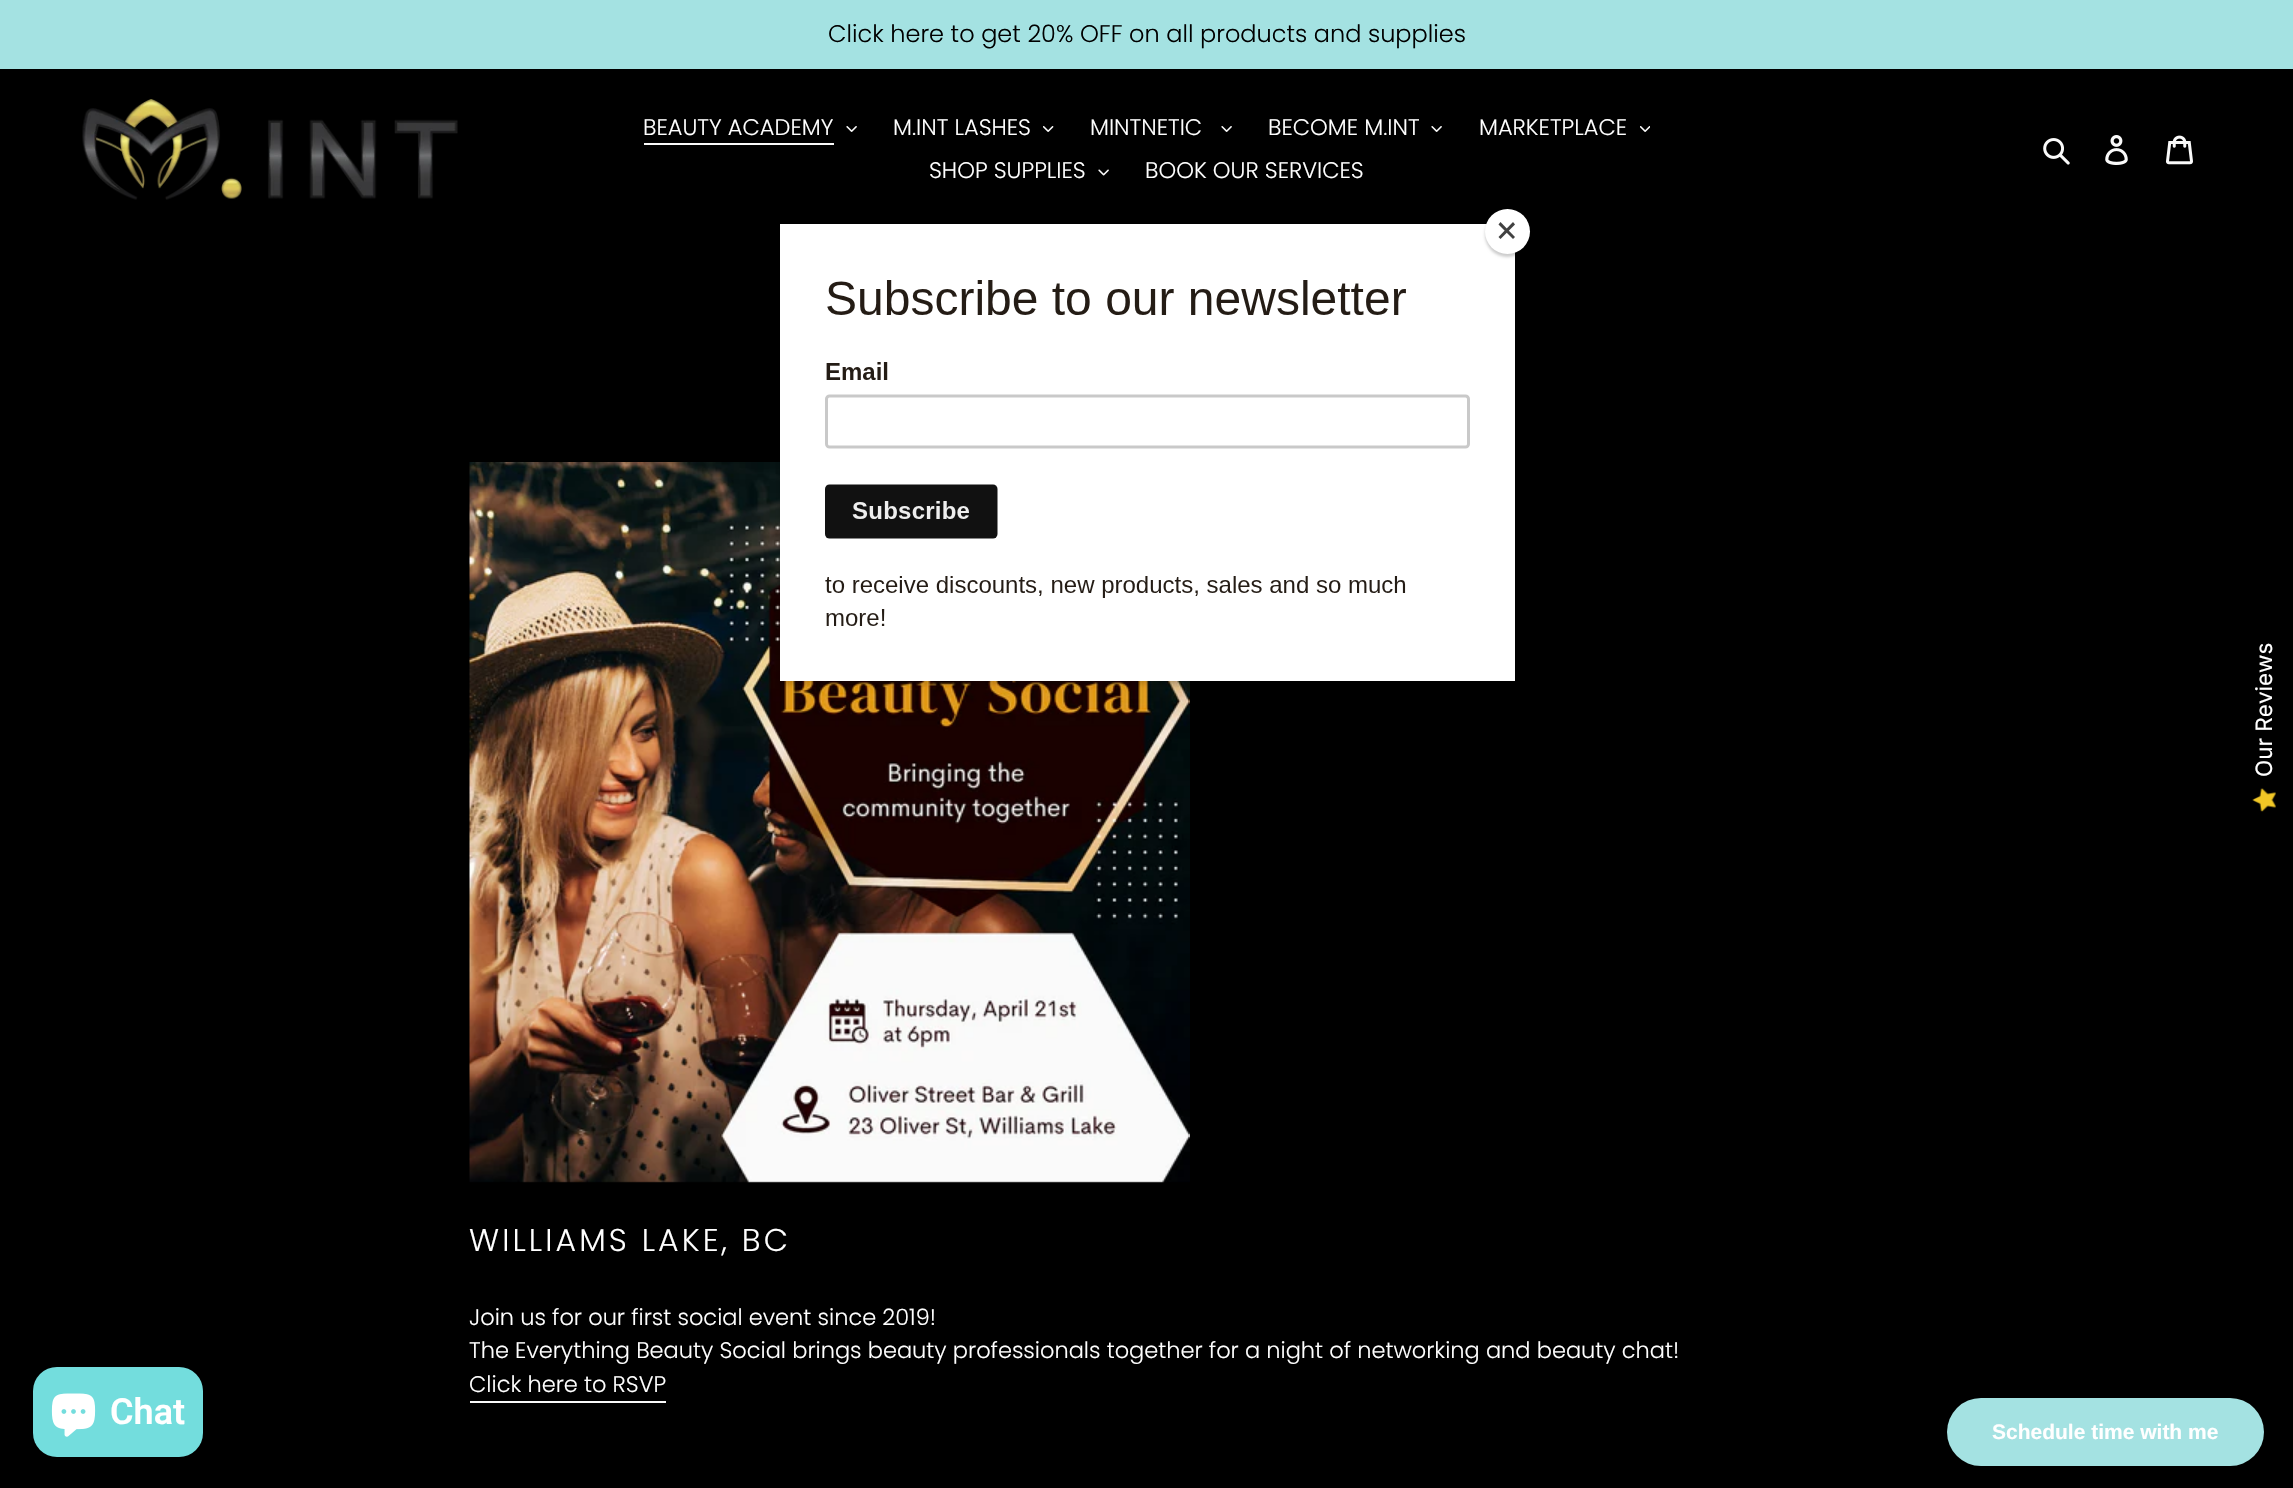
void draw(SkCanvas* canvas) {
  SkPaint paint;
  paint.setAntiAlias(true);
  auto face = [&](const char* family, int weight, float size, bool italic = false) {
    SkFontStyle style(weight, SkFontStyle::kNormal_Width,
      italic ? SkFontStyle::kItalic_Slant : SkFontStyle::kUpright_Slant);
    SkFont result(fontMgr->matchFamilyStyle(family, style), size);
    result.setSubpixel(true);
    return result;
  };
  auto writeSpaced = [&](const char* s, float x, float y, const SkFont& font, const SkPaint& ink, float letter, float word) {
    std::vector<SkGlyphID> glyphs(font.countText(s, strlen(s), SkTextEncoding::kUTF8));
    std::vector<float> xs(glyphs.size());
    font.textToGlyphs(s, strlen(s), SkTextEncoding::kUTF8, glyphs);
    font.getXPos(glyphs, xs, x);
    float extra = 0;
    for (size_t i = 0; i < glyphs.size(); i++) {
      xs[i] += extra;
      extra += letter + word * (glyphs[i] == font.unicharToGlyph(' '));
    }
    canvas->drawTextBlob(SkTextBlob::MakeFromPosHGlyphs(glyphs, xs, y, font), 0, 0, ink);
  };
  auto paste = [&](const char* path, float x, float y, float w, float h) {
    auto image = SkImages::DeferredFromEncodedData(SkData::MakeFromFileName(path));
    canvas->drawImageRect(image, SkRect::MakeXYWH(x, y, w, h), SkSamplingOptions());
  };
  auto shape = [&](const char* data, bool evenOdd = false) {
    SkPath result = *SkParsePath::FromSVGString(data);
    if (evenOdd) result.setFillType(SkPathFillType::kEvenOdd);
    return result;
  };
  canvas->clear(0xff000000);
  paint.setColor(0xffa4e2e2);
  canvas->drawRect(SkRect::MakeXYWH(0, 0, 2293, 69), paint);
  paste("img/1.png", 82, 99, 376, 101);
  paint.setColor(0xfffafafa);
  canvas->drawRect(SkRect::MakeXYWH(644, 143, 190, 2), paint);
  paste("img/2.png", 846, 126, 11, 6);
  paste("img/3.png", 1043, 126, 11, 6);
  paste("img/2.png", 1221, 126, 11, 6);
  paste("img/2.png", 1431, 126, 11, 6);
  paste("img/4.png", 1640, 126, 10, 6);
  paste("img/5.png", 1098, 169, 11, 7);
  paste("img/6.png", 2043, 138, 27, 27);
  paste("img/7.png", 2105, 135, 23, 30);
  paste("img/8.png", 2166, 135, 27, 30);
  paste("img/11.png", 469, 462, 721, 721);
  paint.setColor(0x33000000);
  paint.setMaskFilter(SkMaskFilter::MakeBlur(kNormal_SkBlurStyle, 3));
  canvas->drawRect(SkRect::MakeXYWH(780, 227, 735, 457), paint);
  paint.setMaskFilter(nullptr);
  paste("img/9.png", 780, 224, 735, 457);
  paint.setMaskFilter(SkMaskFilter::MakeBlur(kNormal_SkBlurStyle, 1.5f));
  canvas->drawRoundRect(SkRect::MakeXYWH(1485, 212, 45, 45), 22.5f, 22.5f, paint);
  paint.setMaskFilter(nullptr);
  paint.setColor(0xffffffff);
  canvas->drawCircle(1507.5f, 231.5f, 22.5f, paint);
  paint.setColor(0xff414141);
  canvas->drawPath(shape("M1513 222L1515 224.5L1500.5 239L1498.5 237Z"), paint);
  canvas->drawPath(shape("M1498.5 224.5L1500.5 222L1515 237L1513 239Z"), paint);
  paste("img/10.png", 2252, 788, 24, 24);
  paint.setColor(0xfffafafa);
  canvas->drawRect(SkRect::MakeXYWH(470, 1401, 196, 2), paint);
  paint.setColor(0xff73dddd);
  canvas->drawRoundRect(SkRect::MakeXYWH(33, 1367, 170, 90), 24, 24, paint);
  paste("img/12.png", 51, 1393, 45, 44);
  paint.setColor(0xffa4e2e2);
  canvas->drawRoundRect(SkRect::MakeXYWH(1947, 1398, 317, 68), 34, 34, paint);
  auto f0 = face("Poppins", 300, 24);
  paint.setColor(0xff000000);
  canvas->drawString("Click here to get 20% OFF on all products and supplies", 828, 42, f0, paint);
  auto f1 = face("Poppins", 300, 22.5f);
  paint.setColor(0xffffffff);
  {
    const struct { const char* s; float x, y; } items[] = {
      {"BEAUTY ACADEMY", 643, 135},
      {"M.INT LASHES", 893, 135},
      {"MINTNETIC", 1090, 135},
      {"BECOME M.INT", 1268, 135},
      {"MARKETPLACE", 1479, 135},
      {"SHOP SUPPLIES", 929, 178},
      {"BOOK OUR SERVICES", 1145, 178},
    };
    for (auto [s, x, y] : items) {
      canvas->drawString(s, x, y, f1, paint);
    }
  }
  auto f2 = face("Inter", 400, 22.5f);
  canvas->save();
  canvas->rotate(-90, 2272, 777);
  canvas->drawString("Our Reviews", 2272, 777, f2, paint);
  canvas->restore();
  auto f3 = face("Poppins", 300, 31.5f);
  writeSpaced("WILLIAMS LAKE, BC", 469, 1251, f3, paint, 3.1f, 0);
  {
    const struct { const char* s; float x, y; } items[] = {
      {"Join us for our first social event since 2019!", 469, 1325},
      {"The Everything Beauty Social brings beauty professionals together for a night of networking and beauty chat!", 469, 1358},
      {"Click here to RSVP", 469, 1392},
    };
    for (auto [s, x, y] : items) {
      canvas->drawString(s, x, y, f1, paint);
    }
  }
  auto f4 = face("Roboto", 600, 36);
  canvas->drawString("Chat", 110, 1424, f4, paint);
  auto f5 = face("Liberation Sans", 700, 21);
  canvas->drawString("Schedule time with me", 1992, 1439, f5, paint);
}
